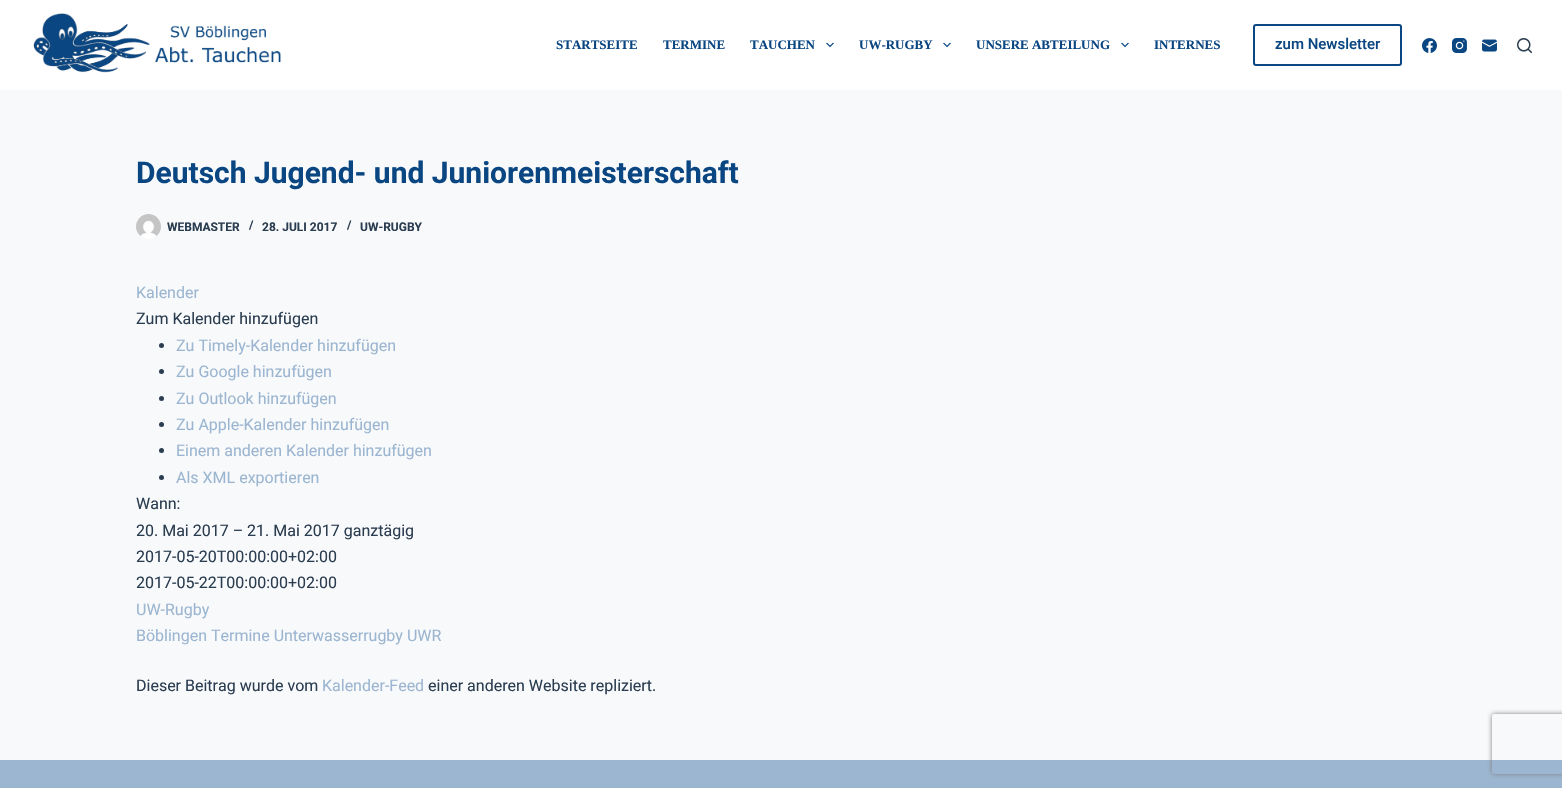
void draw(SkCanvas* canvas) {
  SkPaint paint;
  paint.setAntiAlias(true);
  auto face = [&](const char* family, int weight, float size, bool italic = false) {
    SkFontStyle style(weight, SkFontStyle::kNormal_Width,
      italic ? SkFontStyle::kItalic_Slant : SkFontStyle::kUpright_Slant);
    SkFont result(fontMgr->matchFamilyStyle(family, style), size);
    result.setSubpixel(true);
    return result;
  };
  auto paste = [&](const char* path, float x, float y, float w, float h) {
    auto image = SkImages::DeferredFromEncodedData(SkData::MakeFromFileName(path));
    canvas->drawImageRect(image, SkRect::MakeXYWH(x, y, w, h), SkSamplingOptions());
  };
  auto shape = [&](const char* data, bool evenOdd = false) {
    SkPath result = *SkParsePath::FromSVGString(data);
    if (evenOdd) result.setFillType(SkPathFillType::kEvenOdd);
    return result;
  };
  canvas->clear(0xfff8f9fb);
  paint.setColor(0xffffffff);
  canvas->drawRect(SkRect::MakeXYWH(0, 0, 1562, 90), paint);
  paste("img/1.png", 33, 13, 248, 60);
  paste("img/2.png", 826, 42, 8, 6);
  paste("img/2.png", 943, 42, 8, 6);
  paste("img/2.png", 1121, 42, 8, 6);
  paint.setStroke(true);
  paint.setStrokeWidth(2);
  paint.setColor(0xff0a4682);
  canvas->drawRoundRect(SkRect::MakeXYWH(1254, 25, 147, 40), 2, 2, paint);
  paste("img/3.png", 1422, 38, 15, 15);
  paste("img/4.png", 1452, 38, 15, 15);
  paste("img/5.png", 1482, 39, 15, 13);
  paste("img/6.png", 1517, 38, 15, 15);
  paste("img/7.png", 136, 214, 25, 25);
  paint.setStroke(false);
  paint.setColor(0xff2b3d50);
  canvas->drawCircle(161.5f, 345.5f, 2.5f, paint);
  canvas->drawCircle(161.5f, 371.5f, 2.5f, paint);
  canvas->drawCircle(161.5f, 398.5f, 2.5f, paint);
  canvas->drawCircle(161.5f, 424.5f, 2.5f, paint);
  canvas->drawCircle(161.5f, 450.5f, 2.5f, paint);
  canvas->drawCircle(161.5f, 477.5f, 2.5f, paint);
  paint.setColor(0xff9cb6d1);
  canvas->drawRect(SkRect::MakeXYWH(0, 760, 1562, 28), paint);
  canvas->save();
  canvas->clipPath(shape("M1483 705H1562V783H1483ZM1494 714H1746C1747 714 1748 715 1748 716V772C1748 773 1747 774 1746 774H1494C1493 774 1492 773 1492 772V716C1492 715 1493 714 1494 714Z", true), true);
  paint.setColor(0xff808080);
  paint.setMaskFilter(SkMaskFilter::MakeBlur(kNormal_SkBlurStyle, 2.5f));
  canvas->drawRoundRect(SkRect::MakeXYWH(1492, 714, 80, 60), 2, 2, paint);
  paint.setMaskFilter(nullptr);
  canvas->restore();
  auto f0 = face("Liberation Serif", 700, 13);
  paint.setColor(0xff0a4682);
  {
    const struct { const char* s; float x, y; } items[] = {
      {"STARTSEITE", 556, 49},
      {"TERMINE", 663, 49},
      {"TAUCHEN", 750, 49},
      {"UW-RUGBY", 859, 49},
      {"UNSERE ABTEILUNG", 976, 49},
      {"INTERNES", 1154, 49},
    };
    for (auto [s, x, y] : items) {
      canvas->drawString(s, x, y, f0, paint);
    }
  }
  auto f1 = face("Roboto", 500, 15);
  canvas->drawString("zum Newsletter", 1275, 49, f1, paint);
  auto f2 = face("Roboto", 700, 30);
  canvas->drawString("Deutsch Jugend- und Juniorenmeisterschaft", 136, 183, f2, paint);
  auto f3 = face("Roboto", 700, 12);
  paint.setColor(0xff2b3d50);
  {
    const struct { const char* s; float x, y; } items[] = {
      {"WEBMASTER", 167, 231},
      {"/", 249, 229},
      {"28. JULI 2017", 262, 231},
      {"/", 347, 229},
      {"UW-RUGBY", 360, 231},
    };
    for (auto [s, x, y] : items) {
      canvas->drawString(s, x, y, f3, paint);
    }
  }
  auto f4 = face("Roboto", 400, 16);
  paint.setColor(0xff9cb6d1);
  canvas->drawString("Kalender", 136, 298, f4, paint);
  paint.setColor(0xff2b3d50);
  canvas->drawString("Zum Kalender hinzufügen", 136, 324, f4, paint);
  paint.setColor(0xff9cb6d1);
  {
    const struct { const char* s; float x, y; } items[] = {
      {"Zu Timely-Kalender hinzufügen", 176, 351},
      {"Zu Google hinzufügen", 176, 377},
      {"Zu Outlook hinzufügen", 176, 404},
      {"Zu Apple-Kalender hinzufügen", 176, 430},
      {"Einem anderen Kalender hinzufügen", 176, 456},
      {"Als XML exportieren", 176, 483},
    };
    for (auto [s, x, y] : items) {
      canvas->drawString(s, x, y, f4, paint);
    }
  }
  paint.setColor(0xff2b3d50);
  {
    const struct { const char* s; float x, y; } items[] = {
      {"Wann:", 136, 509},
      {"20. Mai 2017 – 21. Mai 2017 ganztägig", 136, 536},
      {"2017-05-20T00:00:00+02:00", 136, 562},
      {"2017-05-22T00:00:00+02:00", 136, 588},
    };
    for (auto [s, x, y] : items) {
      canvas->drawString(s, x, y, f4, paint);
    }
  }
  paint.setColor(0xff9cb6d1);
  canvas->drawString("UW-Rugby", 136, 615, f4, paint);
  canvas->drawString("Böblingen Termine Unterwasserrugby UWR", 136, 641, f4, paint);
  paint.setColor(0xff2b3d50);
  canvas->drawString("Dieser Beitrag wurde vom", 136, 691, f4, paint);
  paint.setColor(0xff9cb6d1);
  canvas->drawString("Kalender-Feed", 322, 691, f4, paint);
  paint.setColor(0xff2b3d50);
  canvas->drawString("einer anderen Website repliziert.", 428, 691, f4, paint);
}
